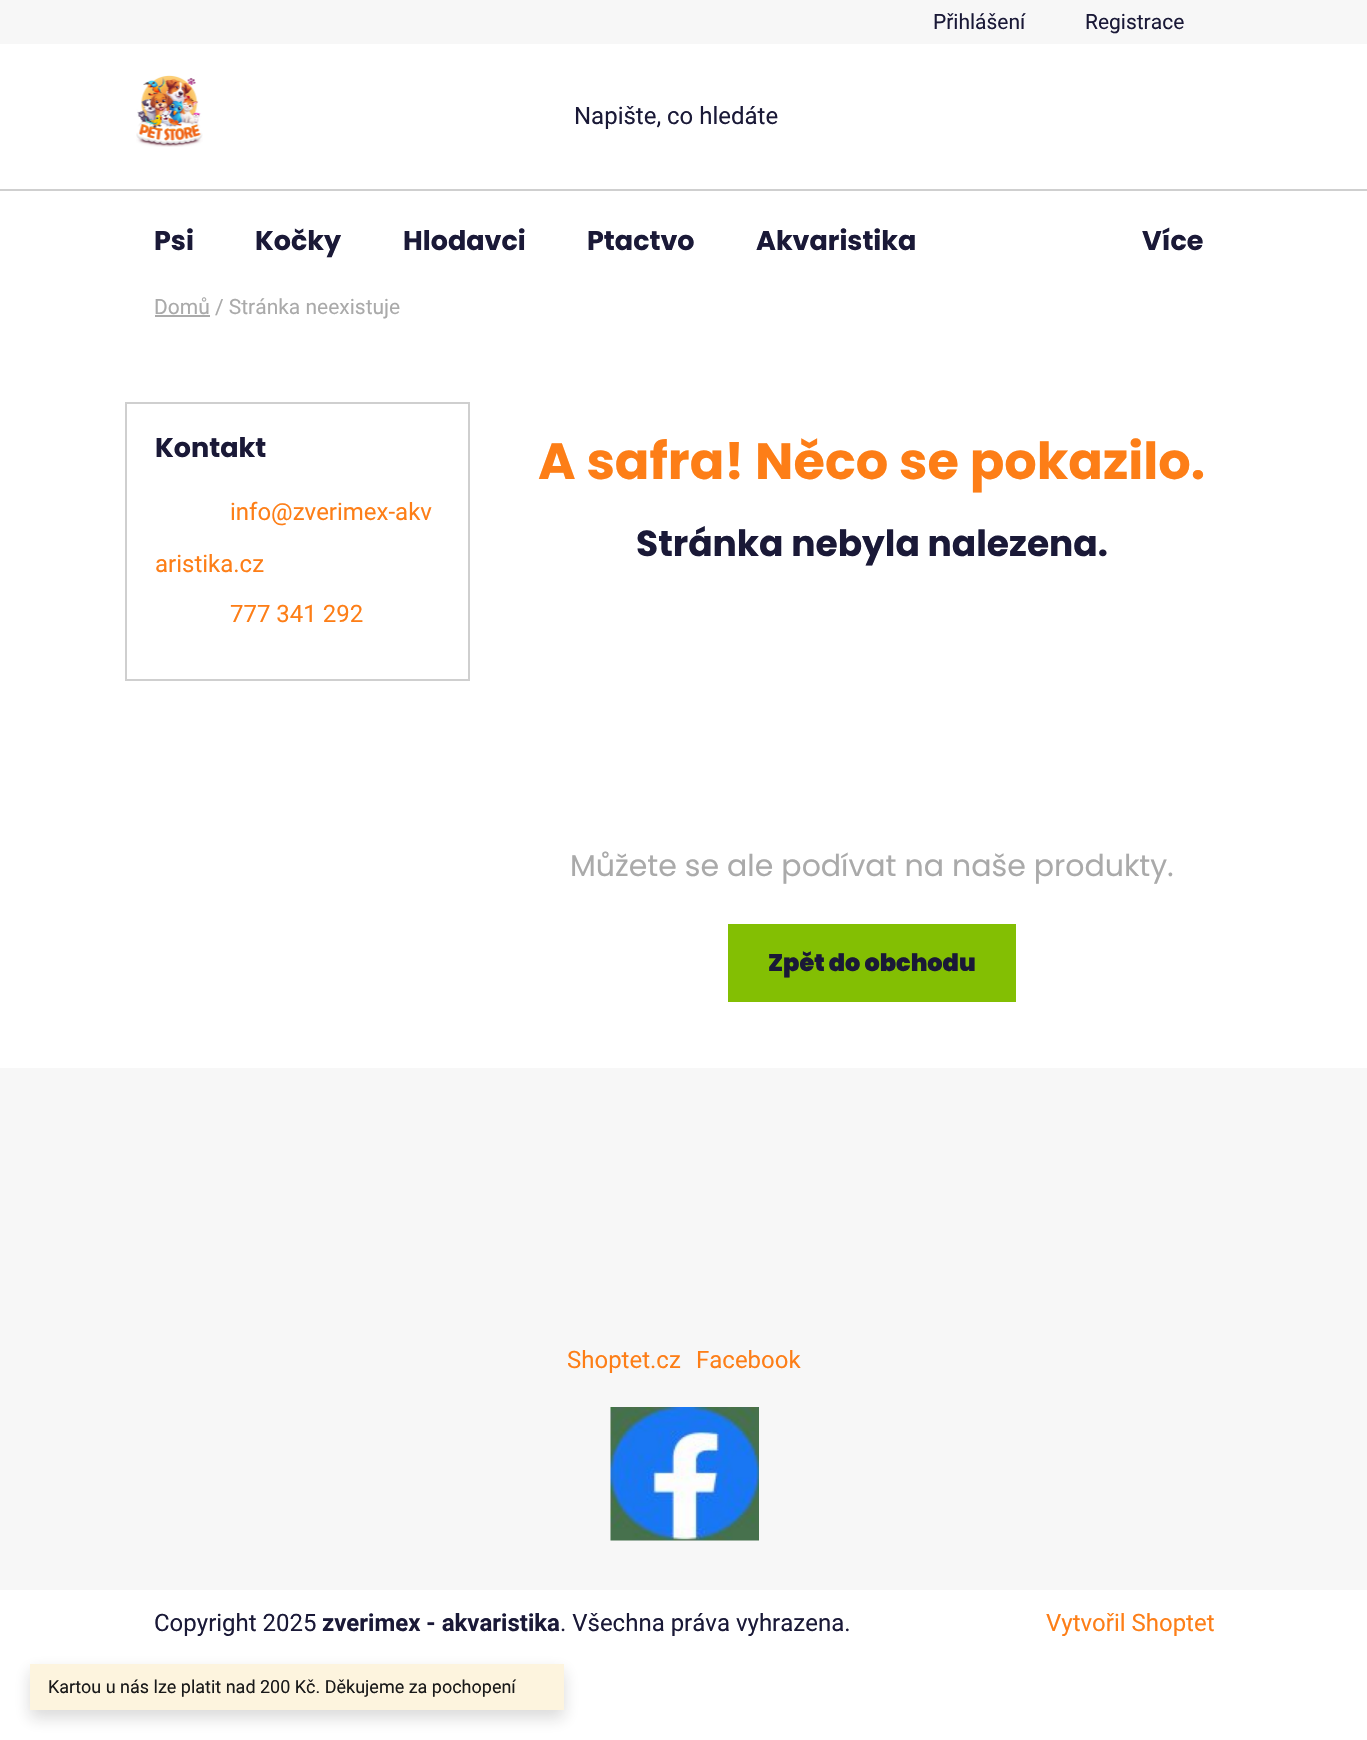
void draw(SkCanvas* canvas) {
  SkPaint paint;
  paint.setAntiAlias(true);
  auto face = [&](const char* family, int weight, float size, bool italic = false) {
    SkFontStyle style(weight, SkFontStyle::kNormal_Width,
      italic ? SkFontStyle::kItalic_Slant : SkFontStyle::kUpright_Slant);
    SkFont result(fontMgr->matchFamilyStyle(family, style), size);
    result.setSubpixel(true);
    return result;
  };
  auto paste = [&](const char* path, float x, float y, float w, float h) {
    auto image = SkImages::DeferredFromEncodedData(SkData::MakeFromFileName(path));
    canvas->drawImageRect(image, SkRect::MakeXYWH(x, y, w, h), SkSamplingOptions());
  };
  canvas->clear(0xffffffff);
  paint.setColor(0xfff7f7f7);
  canvas->drawRect(SkRect::MakeXYWH(0, 0, 1367, 44), paint);
  paste("img/1.png", 136, 75, 67, 72);
  paint.setColor(0xffcfcfcf);
  canvas->drawRect(SkRect::MakeXYWH(0, 189, 1367, 2), paint);
  paint.setColor(0xffaaaaaa);
  canvas->drawRect(SkRect::MakeXYWH(155, 315, 55, 2), paint);
  paint.setStroke(true);
  paint.setStrokeWidth(2);
  paint.setColor(0xffcfcfcf);
  canvas->drawRect(SkRect::MakeXYWH(126, 403, 343, 277), paint);
  paint.setStroke(false);
  paint.setColor(0xff83bf03);
  canvas->drawRect(SkRect::MakeXYWH(728, 924, 288, 78), paint);
  paint.setColor(0xfff7f7f7);
  canvas->drawRect(SkRect::MakeXYWH(0, 1068, 1367, 522), paint);
  paste("img/2.png", 610, 1407, 149, 134);
  paint.setColor(0x291a1a1a);
  paint.setMaskFilter(SkMaskFilter::MakeBlur(kNormal_SkBlurStyle, 7.5f));
  canvas->drawRect(SkRect::MakeXYWH(30, 1671, 534, 47), paint);
  paint.setMaskFilter(nullptr);
  paint.setColor(0xfffdf4de);
  canvas->drawRect(SkRect::MakeXYWH(30, 1664, 534, 46), paint);
  auto f0 = face("Roboto", 400, 21);
  paint.setColor(0xff1a1937);
  canvas->drawString("Přihlášení", 933, 29, f0, paint);
  canvas->drawString("Registrace", 1085, 29, f0, paint);
  auto f1 = face("Roboto", 400, 24);
  canvas->drawString("Napište, co hledáte", 574, 124, f1, paint);
  auto f2 = face("Poppins", 700, 27);
  {
    const struct { const char* s; float x, y; } items[] = {
      {"Psi", 154, 250},
      {"Kočky", 255, 250},
      {"Hlodavci", 403, 250},
      {"Ptactvo", 587, 250},
      {"Akvaristika", 756, 250},
      {"Více", 1142, 250},
    };
    for (auto [s, x, y] : items) {
      canvas->drawString(s, x, y, f2, paint);
    }
  }
  paint.setColor(0xffaaaaaa);
  canvas->drawString("Domů / Stránka neexistuje", 154, 314, f0, paint);
  paint.setColor(0xff1a1937);
  canvas->drawString("Kontakt", 155, 457, f2, paint);
  paint.setColor(0xfffd7e17);
  {
    const struct { const char* s; float x, y; } items[] = {
      {"info@zverimex-akv", 230, 520},
      {"aristika.cz", 155, 572},
      {"777 341 292", 230, 622},
    };
    for (auto [s, x, y] : items) {
      canvas->drawString(s, x, y, f1, paint);
    }
  }
  auto f3 = face("Poppins", 700, 51);
  canvas->drawString("A safra! Něco se pokazilo.", 538, 479, f3, paint);
  auto f4 = face("Poppins", 700, 36);
  paint.setColor(0xff1a1937);
  canvas->drawString("Stránka nebyla nalezena.", 636, 556, f4, paint);
  auto f5 = face("Poppins", 400, 30);
  paint.setColor(0xffaaaaaa);
  canvas->drawString("Můžete se ale podívat na naše produkty.", 570, 876, f5, paint);
  auto f6 = face("Poppins", 900, 24);
  paint.setColor(0xff1a1937);
  canvas->drawString("Zpět do obchodu", 768, 971, f6, paint);
  paint.setColor(0xfffd7e17);
  canvas->drawString("Shoptet.cz", 567, 1368, f1, paint);
  canvas->drawString("Facebook", 696, 1368, f1, paint);
  paint.setColor(0xff1a1937);
  canvas->drawString("Copyright 2025", 154, 1631, f1, paint);
  auto f7 = face("Roboto", 700, 24);
  canvas->drawString("zverimex - akvaristika", 322, 1631, f7, paint);
  canvas->drawString(". Všechna práva vyhrazena.", 560, 1631, f1, paint);
  paint.setColor(0xfffd7e17);
  canvas->drawString("Vytvořil Shoptet", 1046, 1631, f1, paint);
  auto f8 = face("Roboto", 400, 18);
  paint.setColor(0xff1a1a1a);
  canvas->drawString("Kartou u nás lze platit nad 200 Kč. Děkujeme za pochopení", 48, 1693, f8, paint);
}
